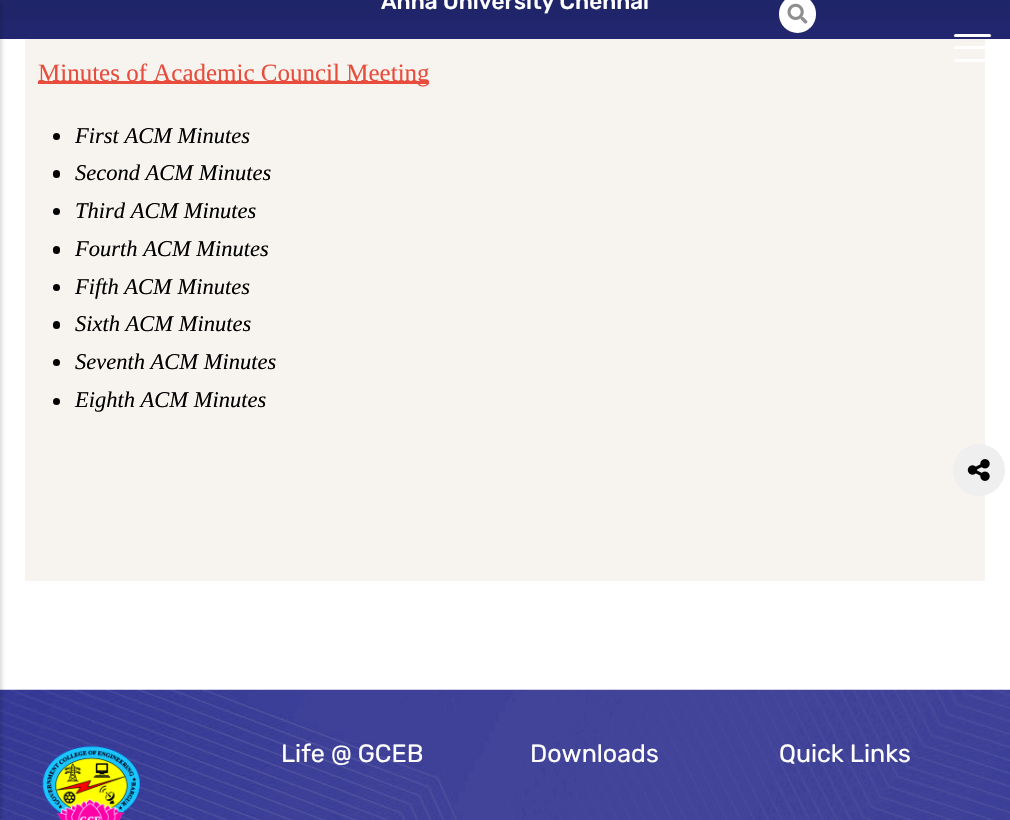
void draw(SkCanvas* canvas) {
  SkPaint paint;
  paint.setAntiAlias(true);
  auto face = [&](const char* family, int weight, float size, bool italic = false) {
    SkFontStyle style(weight, SkFontStyle::kNormal_Width,
      italic ? SkFontStyle::kItalic_Slant : SkFontStyle::kUpright_Slant);
    SkFont result(fontMgr->matchFamilyStyle(family, style), size);
    result.setSubpixel(true);
    return result;
  };
  auto paste = [&](const char* path, float x, float y, float w, float h) {
    auto image = SkImages::DeferredFromEncodedData(SkData::MakeFromFileName(path));
    canvas->drawImageRect(image, SkRect::MakeXYWH(x, y, w, h), SkSamplingOptions());
  };
  canvas->clear(0xffffffff);
  {
    const SkColor colors[] = {0xff10203f, 0xff222670};
    const float stops[] = {0, 1};
    const SkPoint ends[] = {{505, -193}, {505, 39}};
    paint.setShader(SkGradientShader::MakeLinear(ends, colors, stops, 2, SkTileMode::kClamp));
    paint.setAlpha(255);
  }
  canvas->drawRect(SkRect::MakeXYWH(0, 0, 1010, 39), paint);
  paste("img/3.png", 0, 689, 1010, 131);
  paint.setShader(nullptr);
  paint.setColor(0x33000000);
  paint.setMaskFilter(SkMaskFilter::MakeBlur(kNormal_SkBlurStyle, 2.5f));
  canvas->drawRect(SkRect::MakeXYWH(-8, 4, 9, 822), paint);
  paint.setMaskFilter(nullptr);
  paint.setColor(0xffffffff);
  canvas->drawRoundRect(SkRect::MakeXYWH(779, -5, 37, 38), 18.5f, 18.5f, paint);
  paste("img/1.png", 787, 3, 21, 21);
  paint.setColor(0xfff7f4ef);
  canvas->drawRect(SkRect::MakeXYWH(25, 39, 960, 542), paint);
  paint.setColor(0xffefefef);
  canvas->drawCircle(979, 470, 26, paint);
  paste("img/2.png", 967, 459, 23, 22);
  paint.setColor(0xffe74c3c);
  canvas->drawRect(SkRect::MakeXYWH(38, 81, 391, 3), paint);
  paint.setColor(0xff000000);
  canvas->drawCircle(56.5f, 136.5f, 3.5f, paint);
  canvas->drawRoundRect(SkRect::MakeXYWH(53, 170, 7, 8), 3.5f, 3.5f, paint);
  canvas->drawCircle(56.5f, 211.5f, 3.5f, paint);
  canvas->drawRoundRect(SkRect::MakeXYWH(53, 246, 7, 8), 3.5f, 3.5f, paint);
  canvas->drawCircle(56.5f, 287.5f, 3.5f, paint);
  canvas->drawRoundRect(SkRect::MakeXYWH(53, 321, 7, 8), 3.5f, 3.5f, paint);
  canvas->drawCircle(56.5f, 362.5f, 3.5f, paint);
  canvas->drawCircle(56.5f, 401.5f, 3.5f, paint);
  paste("img/4.png", 42, 745, 99, 75);
  paint.setColor(0xffffffff);
  canvas->drawRoundRect(SkRect::MakeXYWH(954, 34, 37, 3), 1.5f, 1.5f, paint);
  canvas->drawRoundRect(SkRect::MakeXYWH(954, 46, 37, 3), 1.5f, 1.5f, paint);
  canvas->drawRoundRect(SkRect::MakeXYWH(954, 59, 37, 3), 1.5f, 1.5f, paint);
  auto f0 = face("Rubik", 500, 22.5f);
  canvas->drawString("Anna University Chennai", 381, 9, f0, paint);
  auto f1 = face("Liberation Serif", 400, 25);
  paint.setColor(0xffe74c3c);
  canvas->drawString("Minutes of Academic Council Meeting", 38, 81, f1, paint);
  auto f2 = face("Liberation Serif", 400, 22.5f, true);
  paint.setColor(0xff000000);
  {
    const struct { const char* s; float x, y; } items[] = {
      {"First ACM Minutes", 75, 143},
      {"Second ACM Minutes", 75, 180},
      {"Third ACM Minutes", 75, 218},
      {"Fourth ACM Minutes", 75, 256},
      {"Fifth ACM Minutes", 75, 294},
      {"Sixth ACM Minutes", 75, 331},
      {"Seventh ACM Minutes", 75, 369},
      {"Eighth ACM Minutes", 75, 407},
    };
    for (auto [s, x, y] : items) {
      canvas->drawString(s, x, y, f2, paint);
    }
  }
  auto f3 = face("Rubik", 400, 25);
  paint.setColor(0xffffffff);
  {
    const struct { const char* s; float x, y; } items[] = {
      {"Life @ GCEB", 281, 762},
      {"Downloads", 530, 762},
      {"Quick Links", 779, 762},
    };
    for (auto [s, x, y] : items) {
      canvas->drawString(s, x, y, f3, paint);
    }
  }
}
